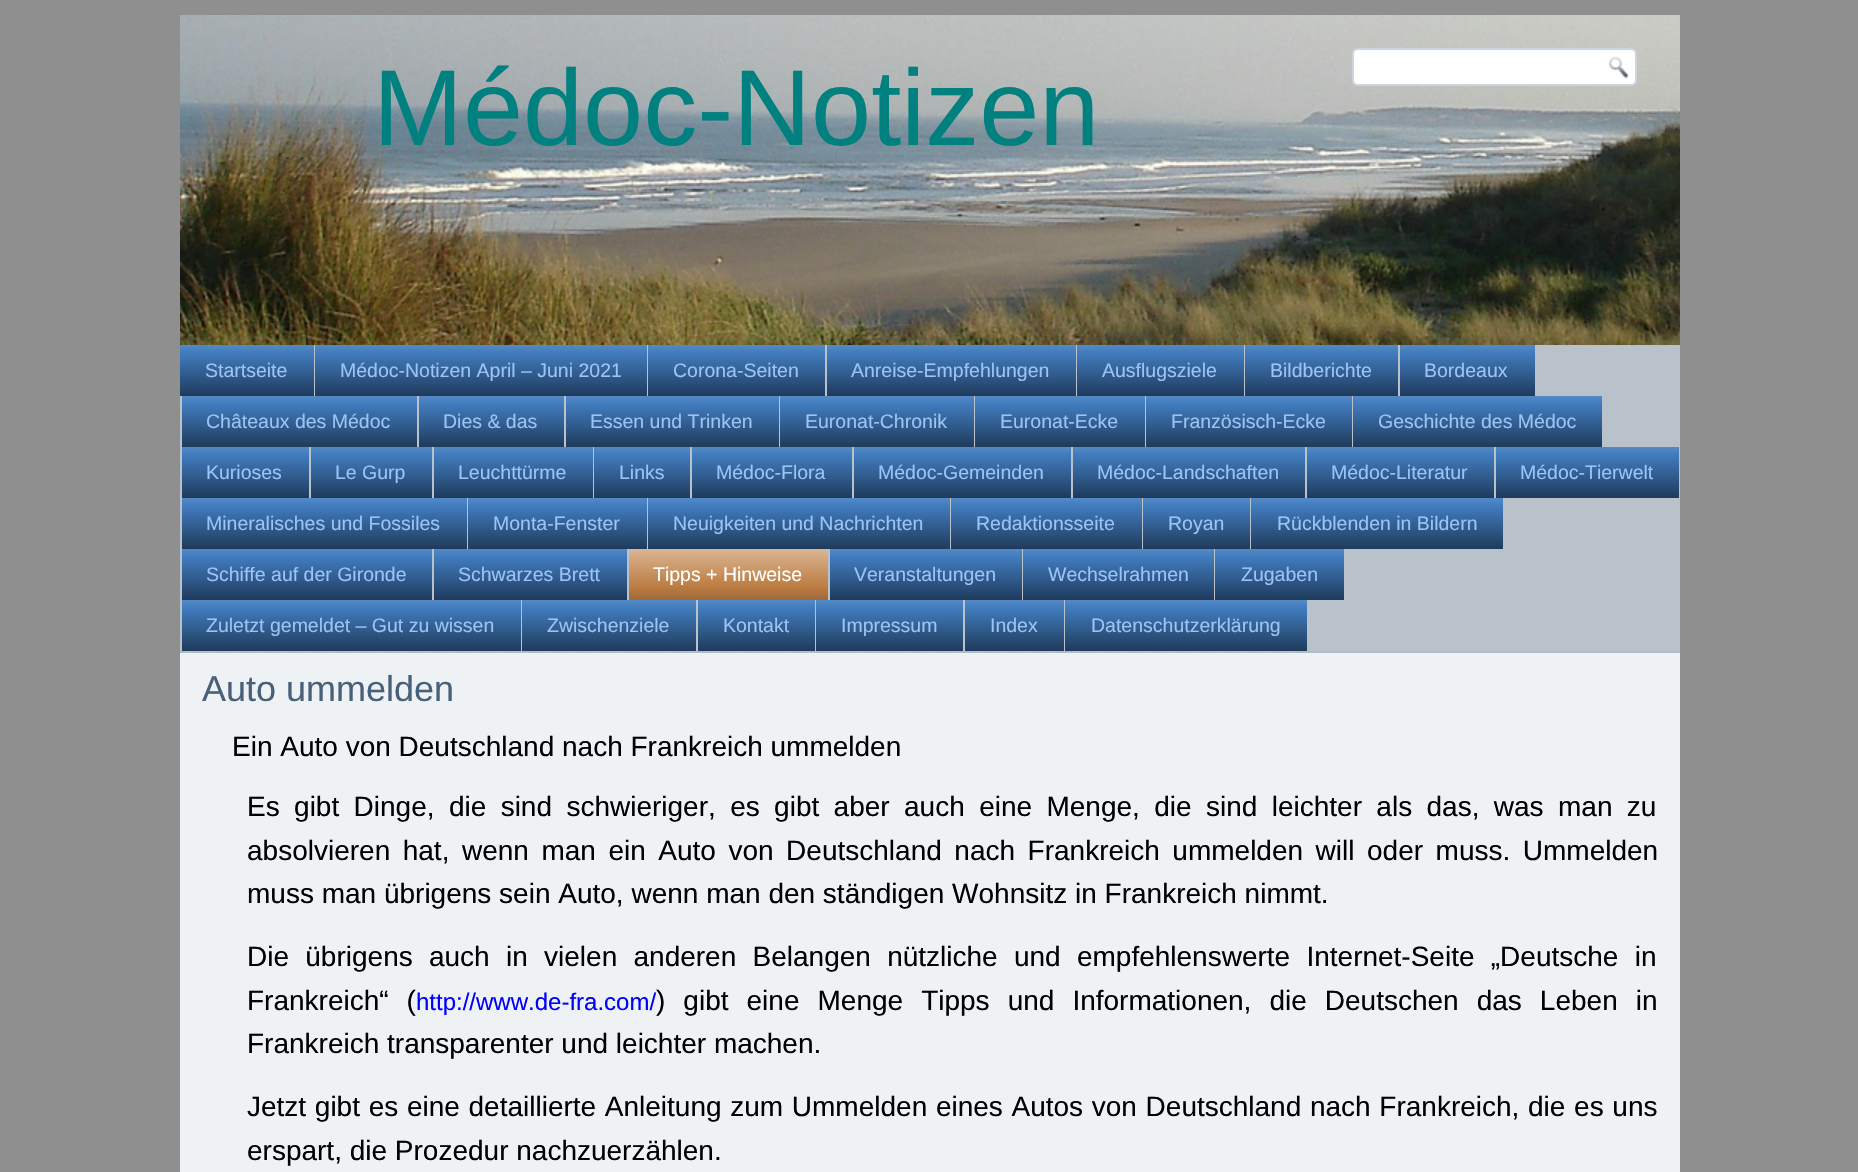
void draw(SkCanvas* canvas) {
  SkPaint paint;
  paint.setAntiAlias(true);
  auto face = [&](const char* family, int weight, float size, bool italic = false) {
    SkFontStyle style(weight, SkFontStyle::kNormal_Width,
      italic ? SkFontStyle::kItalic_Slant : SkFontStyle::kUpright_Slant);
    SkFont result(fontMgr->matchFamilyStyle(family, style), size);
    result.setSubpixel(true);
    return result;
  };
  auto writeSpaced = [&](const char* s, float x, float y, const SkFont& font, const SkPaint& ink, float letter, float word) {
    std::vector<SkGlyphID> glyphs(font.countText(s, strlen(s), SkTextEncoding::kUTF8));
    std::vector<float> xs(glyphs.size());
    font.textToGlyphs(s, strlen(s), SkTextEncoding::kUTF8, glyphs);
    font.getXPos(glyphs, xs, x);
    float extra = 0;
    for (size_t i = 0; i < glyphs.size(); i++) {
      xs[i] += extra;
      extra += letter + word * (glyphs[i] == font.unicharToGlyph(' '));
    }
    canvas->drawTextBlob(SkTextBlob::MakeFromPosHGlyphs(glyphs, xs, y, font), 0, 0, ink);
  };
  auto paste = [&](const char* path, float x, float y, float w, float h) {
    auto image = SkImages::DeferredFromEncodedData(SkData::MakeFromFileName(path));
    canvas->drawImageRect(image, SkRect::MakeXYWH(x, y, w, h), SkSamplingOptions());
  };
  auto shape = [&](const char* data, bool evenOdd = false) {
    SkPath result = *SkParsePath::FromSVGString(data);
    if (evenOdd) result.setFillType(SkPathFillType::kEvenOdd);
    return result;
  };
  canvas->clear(0xff8f8f8f);
  paint.setColor(0xffeff2f5);
  canvas->drawRect(SkRect::MakeXYWH(180, 653, 1500, 519), paint);
  paste("img/1.png", 180, 15, 1500, 330);
  paint.setColor(0xffffffff);
  canvas->drawRoundRect(SkRect::MakeXYWH(1353, 49, 283, 36), 5, 5, paint);
  paint.setStroke(true);
  paint.setStrokeWidth(2);
  paint.setColor(0xffccd6e0);
  canvas->drawRoundRect(SkRect::MakeXYWH(1353, 49, 283, 36), 5, 5, paint);
  paste("img/2.png", 1608, 56, 21, 23);
  paint.setStroke(false);
  paint.setColor(0xffb9c2cb);
  canvas->drawRect(SkRect::MakeXYWH(180, 345, 1500, 308), paint);
  paint.setStroke(true);
  paint.setStrokeWidth(1.5f);
  paint.setColor(0xffa3b4c8);
  paint.setPathEffect(SkDashPathEffect::Make({{1.5f, 1.5f}}, 0));
  canvas->drawPath(shape("M180 652H1680"), paint);
  paint.setPathEffect(nullptr);
  paint.setStroke(false);
  {
    const SkColor colors[] = {0xff5489c4, 0xff417bbe, 0xff1f3b5b};
    const float stops[] = {0, 0.16f, 1};
    const SkPoint ends[] = {{247, 345}, {247, 396}};
    paint.setShader(SkGradientShader::MakeLinear(ends, colors, stops, 3, SkTileMode::kClamp));
    paint.setAlpha(255);
  }
  canvas->drawRect(SkRect::MakeXYWH(180, 345, 134, 51), paint);
  {
    const SkColor colors[] = {0xff5489c4, 0xff417bbe, 0xff1f3b5b};
    const float stops[] = {0, 0.16f, 1};
    const SkPoint ends[] = {{481, 345}, {481, 396}};
    paint.setShader(SkGradientShader::MakeLinear(ends, colors, stops, 3, SkTileMode::kClamp));
    paint.setAlpha(255);
  }
  canvas->drawRect(SkRect::MakeXYWH(315, 345, 332, 51), paint);
  {
    const SkColor colors[] = {0xff5489c4, 0xff417bbe, 0xff1f3b5b};
    const float stops[] = {0, 0.16f, 1};
    const SkPoint ends[] = {{737, 345}, {737, 396}};
    paint.setShader(SkGradientShader::MakeLinear(ends, colors, stops, 3, SkTileMode::kClamp));
    paint.setAlpha(255);
  }
  canvas->drawRect(SkRect::MakeXYWH(648, 345, 177, 51), paint);
  {
    const SkColor colors[] = {0xff5489c4, 0xff417bbe, 0xff1f3b5b};
    const float stops[] = {0, 0.16f, 1};
    const SkPoint ends[] = {{951, 345}, {951, 396}};
    paint.setShader(SkGradientShader::MakeLinear(ends, colors, stops, 3, SkTileMode::kClamp));
    paint.setAlpha(255);
  }
  canvas->drawRect(SkRect::MakeXYWH(827, 345, 249, 51), paint);
  {
    const SkColor colors[] = {0xff5489c4, 0xff417bbe, 0xff1f3b5b};
    const float stops[] = {0, 0.16f, 1};
    const SkPoint ends[] = {{1160, 345}, {1160, 396}};
    paint.setShader(SkGradientShader::MakeLinear(ends, colors, stops, 3, SkTileMode::kClamp));
    paint.setAlpha(255);
  }
  canvas->drawRect(SkRect::MakeXYWH(1077, 345, 167, 51), paint);
  {
    const SkColor colors[] = {0xff5489c4, 0xff417bbe, 0xff1f3b5b};
    const float stops[] = {0, 0.16f, 1};
    const SkPoint ends[] = {{1322, 345}, {1322, 396}};
    paint.setShader(SkGradientShader::MakeLinear(ends, colors, stops, 3, SkTileMode::kClamp));
    paint.setAlpha(255);
  }
  canvas->drawRect(SkRect::MakeXYWH(1245, 345, 153, 51), paint);
  {
    const SkColor colors[] = {0xff5489c4, 0xff417bbe, 0xff1f3b5b};
    const float stops[] = {0, 0.16f, 1};
    const SkPoint ends[] = {{1467, 345}, {1467, 396}};
    paint.setShader(SkGradientShader::MakeLinear(ends, colors, stops, 3, SkTileMode::kClamp));
    paint.setAlpha(255);
  }
  canvas->drawRect(SkRect::MakeXYWH(1400, 345, 135, 51), paint);
  {
    const SkColor colors[] = {0xff5489c4, 0xff417bbe, 0xff1f3b5b};
    const float stops[] = {0, 0.16f, 1};
    const SkPoint ends[] = {{299, 396}, {299, 447}};
    paint.setShader(SkGradientShader::MakeLinear(ends, colors, stops, 3, SkTileMode::kClamp));
    paint.setAlpha(255);
  }
  canvas->drawRect(SkRect::MakeXYWH(182, 396, 235, 51), paint);
  {
    const SkColor colors[] = {0xff5489c4, 0xff417bbe, 0xff1f3b5b};
    const float stops[] = {0, 0.16f, 1};
    const SkPoint ends[] = {{491, 396}, {491, 447}};
    paint.setShader(SkGradientShader::MakeLinear(ends, colors, stops, 3, SkTileMode::kClamp));
    paint.setAlpha(255);
  }
  canvas->drawRect(SkRect::MakeXYWH(419, 396, 145, 51), paint);
  {
    const SkColor colors[] = {0xff5489c4, 0xff417bbe, 0xff1f3b5b};
    const float stops[] = {0, 0.16f, 1};
    const SkPoint ends[] = {{672, 396}, {672, 447}};
    paint.setShader(SkGradientShader::MakeLinear(ends, colors, stops, 3, SkTileMode::kClamp));
    paint.setAlpha(255);
  }
  canvas->drawRect(SkRect::MakeXYWH(566, 396, 213, 51), paint);
  {
    const SkColor colors[] = {0xff5489c4, 0xff417bbe, 0xff1f3b5b};
    const float stops[] = {0, 0.16f, 1};
    const SkPoint ends[] = {{877, 396}, {877, 447}};
    paint.setShader(SkGradientShader::MakeLinear(ends, colors, stops, 3, SkTileMode::kClamp));
    paint.setAlpha(255);
  }
  canvas->drawRect(SkRect::MakeXYWH(780, 396, 194, 51), paint);
  {
    const SkColor colors[] = {0xff5489c4, 0xff417bbe, 0xff1f3b5b};
    const float stops[] = {0, 0.16f, 1};
    const SkPoint ends[] = {{1060, 396}, {1060, 447}};
    paint.setShader(SkGradientShader::MakeLinear(ends, colors, stops, 3, SkTileMode::kClamp));
    paint.setAlpha(255);
  }
  canvas->drawRect(SkRect::MakeXYWH(975, 396, 170, 51), paint);
  {
    const SkColor colors[] = {0xff5489c4, 0xff417bbe, 0xff1f3b5b};
    const float stops[] = {0, 0.16f, 1};
    const SkPoint ends[] = {{1249, 396}, {1249, 447}};
    paint.setShader(SkGradientShader::MakeLinear(ends, colors, stops, 3, SkTileMode::kClamp));
    paint.setAlpha(255);
  }
  canvas->drawRect(SkRect::MakeXYWH(1146, 396, 206, 51), paint);
  {
    const SkColor colors[] = {0xff5489c4, 0xff417bbe, 0xff1f3b5b};
    const float stops[] = {0, 0.16f, 1};
    const SkPoint ends[] = {{1478, 396}, {1478, 447}};
    paint.setShader(SkGradientShader::MakeLinear(ends, colors, stops, 3, SkTileMode::kClamp));
    paint.setAlpha(255);
  }
  canvas->drawRect(SkRect::MakeXYWH(1353, 396, 249, 51), paint);
  {
    const SkColor colors[] = {0xff5489c4, 0xff417bbe, 0xff1f3b5b};
    const float stops[] = {0, 0.16f, 1};
    const SkPoint ends[] = {{245, 447}, {245, 498}};
    paint.setShader(SkGradientShader::MakeLinear(ends, colors, stops, 3, SkTileMode::kClamp));
    paint.setAlpha(255);
  }
  canvas->drawRect(SkRect::MakeXYWH(182, 447, 127, 51), paint);
  {
    const SkColor colors[] = {0xff5489c4, 0xff417bbe, 0xff1f3b5b};
    const float stops[] = {0, 0.16f, 1};
    const SkPoint ends[] = {{371, 447}, {371, 498}};
    paint.setShader(SkGradientShader::MakeLinear(ends, colors, stops, 3, SkTileMode::kClamp));
    paint.setAlpha(255);
  }
  canvas->drawRect(SkRect::MakeXYWH(311, 447, 121, 51), paint);
  {
    const SkColor colors[] = {0xff5489c4, 0xff417bbe, 0xff1f3b5b};
    const float stops[] = {0, 0.16f, 1};
    const SkPoint ends[] = {{513, 447}, {513, 498}};
    paint.setShader(SkGradientShader::MakeLinear(ends, colors, stops, 3, SkTileMode::kClamp));
    paint.setAlpha(255);
  }
  canvas->drawRect(SkRect::MakeXYWH(434, 447, 159, 51), paint);
  {
    const SkColor colors[] = {0xff5489c4, 0xff417bbe, 0xff1f3b5b};
    const float stops[] = {0, 0.16f, 1};
    const SkPoint ends[] = {{642, 447}, {642, 498}};
    paint.setShader(SkGradientShader::MakeLinear(ends, colors, stops, 3, SkTileMode::kClamp));
    paint.setAlpha(255);
  }
  canvas->drawRect(SkRect::MakeXYWH(594, 447, 96, 51), paint);
  {
    const SkColor colors[] = {0xff5489c4, 0xff417bbe, 0xff1f3b5b};
    const float stops[] = {0, 0.16f, 1};
    const SkPoint ends[] = {{772, 447}, {772, 498}};
    paint.setShader(SkGradientShader::MakeLinear(ends, colors, stops, 3, SkTileMode::kClamp));
    paint.setAlpha(255);
  }
  canvas->drawRect(SkRect::MakeXYWH(692, 447, 160, 51), paint);
  {
    const SkColor colors[] = {0xff5489c4, 0xff417bbe, 0xff1f3b5b};
    const float stops[] = {0, 0.16f, 1};
    const SkPoint ends[] = {{962, 447}, {962, 498}};
    paint.setShader(SkGradientShader::MakeLinear(ends, colors, stops, 3, SkTileMode::kClamp));
    paint.setAlpha(255);
  }
  canvas->drawRect(SkRect::MakeXYWH(854, 447, 217, 51), paint);
  {
    const SkColor colors[] = {0xff5489c4, 0xff417bbe, 0xff1f3b5b};
    const float stops[] = {0, 0.16f, 1};
    const SkPoint ends[] = {{1189, 447}, {1189, 498}};
    paint.setShader(SkGradientShader::MakeLinear(ends, colors, stops, 3, SkTileMode::kClamp));
    paint.setAlpha(255);
  }
  canvas->drawRect(SkRect::MakeXYWH(1073, 447, 232, 51), paint);
  {
    const SkColor colors[] = {0xff5489c4, 0xff417bbe, 0xff1f3b5b};
    const float stops[] = {0, 0.16f, 1};
    const SkPoint ends[] = {{1400, 447}, {1400, 498}};
    paint.setShader(SkGradientShader::MakeLinear(ends, colors, stops, 3, SkTileMode::kClamp));
    paint.setAlpha(255);
  }
  canvas->drawRect(SkRect::MakeXYWH(1307, 447, 187, 51), paint);
  {
    const SkColor colors[] = {0xff5489c4, 0xff417bbe, 0xff1f3b5b};
    const float stops[] = {0, 0.16f, 1};
    const SkPoint ends[] = {{1587, 447}, {1587, 498}};
    paint.setShader(SkGradientShader::MakeLinear(ends, colors, stops, 3, SkTileMode::kClamp));
    paint.setAlpha(255);
  }
  canvas->drawRect(SkRect::MakeXYWH(1496, 447, 183, 51), paint);
  {
    const SkColor colors[] = {0xff5489c4, 0xff417bbe, 0xff1f3b5b};
    const float stops[] = {0, 0.16f, 1};
    const SkPoint ends[] = {{324, 498}, {324, 549}};
    paint.setShader(SkGradientShader::MakeLinear(ends, colors, stops, 3, SkTileMode::kClamp));
    paint.setAlpha(255);
  }
  canvas->drawRect(SkRect::MakeXYWH(182, 498, 285, 51), paint);
  {
    const SkColor colors[] = {0xff5489c4, 0xff417bbe, 0xff1f3b5b};
    const float stops[] = {0, 0.16f, 1};
    const SkPoint ends[] = {{557, 498}, {557, 549}};
    paint.setShader(SkGradientShader::MakeLinear(ends, colors, stops, 3, SkTileMode::kClamp));
    paint.setAlpha(255);
  }
  canvas->drawRect(SkRect::MakeXYWH(468, 498, 179, 51), paint);
  {
    const SkColor colors[] = {0xff5489c4, 0xff417bbe, 0xff1f3b5b};
    const float stops[] = {0, 0.16f, 1};
    const SkPoint ends[] = {{799, 498}, {799, 549}};
    paint.setShader(SkGradientShader::MakeLinear(ends, colors, stops, 3, SkTileMode::kClamp));
    paint.setAlpha(255);
  }
  canvas->drawRect(SkRect::MakeXYWH(648, 498, 302, 51), paint);
  {
    const SkColor colors[] = {0xff5489c4, 0xff417bbe, 0xff1f3b5b};
    const float stops[] = {0, 0.16f, 1};
    const SkPoint ends[] = {{1046, 498}, {1046, 549}};
    paint.setShader(SkGradientShader::MakeLinear(ends, colors, stops, 3, SkTileMode::kClamp));
    paint.setAlpha(255);
  }
  canvas->drawRect(SkRect::MakeXYWH(951, 498, 191, 51), paint);
  {
    const SkColor colors[] = {0xff5489c4, 0xff417bbe, 0xff1f3b5b};
    const float stops[] = {0, 0.16f, 1};
    const SkPoint ends[] = {{1196, 498}, {1196, 549}};
    paint.setShader(SkGradientShader::MakeLinear(ends, colors, stops, 3, SkTileMode::kClamp));
    paint.setAlpha(255);
  }
  canvas->drawRect(SkRect::MakeXYWH(1143, 498, 107, 51), paint);
  {
    const SkColor colors[] = {0xff5489c4, 0xff417bbe, 0xff1f3b5b};
    const float stops[] = {0, 0.16f, 1};
    const SkPoint ends[] = {{1377, 498}, {1377, 549}};
    paint.setShader(SkGradientShader::MakeLinear(ends, colors, stops, 3, SkTileMode::kClamp));
    paint.setAlpha(255);
  }
  canvas->drawRect(SkRect::MakeXYWH(1251, 498, 252, 51), paint);
  {
    const SkColor colors[] = {0xff5489c4, 0xff417bbe, 0xff1f3b5b};
    const float stops[] = {0, 0.16f, 1};
    const SkPoint ends[] = {{307, 549}, {307, 600}};
    paint.setShader(SkGradientShader::MakeLinear(ends, colors, stops, 3, SkTileMode::kClamp));
    paint.setAlpha(255);
  }
  canvas->drawRect(SkRect::MakeXYWH(182, 549, 250, 51), paint);
  {
    const SkColor colors[] = {0xff5489c4, 0xff417bbe, 0xff1f3b5b};
    const float stops[] = {0, 0.16f, 1};
    const SkPoint ends[] = {{530, 549}, {530, 600}};
    paint.setShader(SkGradientShader::MakeLinear(ends, colors, stops, 3, SkTileMode::kClamp));
    paint.setAlpha(255);
  }
  canvas->drawRect(SkRect::MakeXYWH(434, 549, 193, 51), paint);
  {
    const SkColor colors[] = {0xffdab695, 0xffbd7d42, 0xff9f6938};
    const float stops[] = {0, 0.73f, 1};
    const SkPoint ends[] = {{728, 549}, {728, 600}};
    paint.setShader(SkGradientShader::MakeLinear(ends, colors, stops, 3, SkTileMode::kClamp));
    paint.setAlpha(255);
  }
  canvas->drawRect(SkRect::MakeXYWH(629, 549, 199, 51), paint);
  {
    const SkColor colors[] = {0xff5489c4, 0xff417bbe, 0xff1f3b5b};
    const float stops[] = {0, 0.16f, 1};
    const SkPoint ends[] = {{926, 549}, {926, 600}};
    paint.setShader(SkGradientShader::MakeLinear(ends, colors, stops, 3, SkTileMode::kClamp));
    paint.setAlpha(255);
  }
  canvas->drawRect(SkRect::MakeXYWH(830, 549, 192, 51), paint);
  {
    const SkColor colors[] = {0xff5489c4, 0xff417bbe, 0xff1f3b5b};
    const float stops[] = {0, 0.16f, 1};
    const SkPoint ends[] = {{1118, 549}, {1118, 600}};
    paint.setShader(SkGradientShader::MakeLinear(ends, colors, stops, 3, SkTileMode::kClamp));
    paint.setAlpha(255);
  }
  canvas->drawRect(SkRect::MakeXYWH(1023, 549, 191, 51), paint);
  {
    const SkColor colors[] = {0xff5489c4, 0xff417bbe, 0xff1f3b5b};
    const float stops[] = {0, 0.16f, 1};
    const SkPoint ends[] = {{1280, 549}, {1280, 600}};
    paint.setShader(SkGradientShader::MakeLinear(ends, colors, stops, 3, SkTileMode::kClamp));
    paint.setAlpha(255);
  }
  canvas->drawRect(SkRect::MakeXYWH(1215, 549, 129, 51), paint);
  {
    const SkColor colors[] = {0xff5489c4, 0xff417bbe, 0xff1f3b5b};
    const float stops[] = {0, 0.16f, 1};
    const SkPoint ends[] = {{351, 600}, {351, 651}};
    paint.setShader(SkGradientShader::MakeLinear(ends, colors, stops, 3, SkTileMode::kClamp));
    paint.setAlpha(255);
  }
  canvas->drawRect(SkRect::MakeXYWH(182, 600, 339, 51), paint);
  {
    const SkColor colors[] = {0xff5489c4, 0xff417bbe, 0xff1f3b5b};
    const float stops[] = {0, 0.16f, 1};
    const SkPoint ends[] = {{609, 600}, {609, 651}};
    paint.setShader(SkGradientShader::MakeLinear(ends, colors, stops, 3, SkTileMode::kClamp));
    paint.setAlpha(255);
  }
  canvas->drawRect(SkRect::MakeXYWH(522, 600, 174, 51), paint);
  {
    const SkColor colors[] = {0xff5489c4, 0xff417bbe, 0xff1f3b5b};
    const float stops[] = {0, 0.16f, 1};
    const SkPoint ends[] = {{756, 600}, {756, 651}};
    paint.setShader(SkGradientShader::MakeLinear(ends, colors, stops, 3, SkTileMode::kClamp));
    paint.setAlpha(255);
  }
  canvas->drawRect(SkRect::MakeXYWH(698, 600, 117, 51), paint);
  {
    const SkColor colors[] = {0xff5489c4, 0xff417bbe, 0xff1f3b5b};
    const float stops[] = {0, 0.16f, 1};
    const SkPoint ends[] = {{890, 600}, {890, 651}};
    paint.setShader(SkGradientShader::MakeLinear(ends, colors, stops, 3, SkTileMode::kClamp));
    paint.setAlpha(255);
  }
  canvas->drawRect(SkRect::MakeXYWH(816, 600, 147, 51), paint);
  {
    const SkColor colors[] = {0xff5489c4, 0xff417bbe, 0xff1f3b5b};
    const float stops[] = {0, 0.16f, 1};
    const SkPoint ends[] = {{1014, 600}, {1014, 651}};
    paint.setShader(SkGradientShader::MakeLinear(ends, colors, stops, 3, SkTileMode::kClamp));
    paint.setAlpha(255);
  }
  canvas->drawRect(SkRect::MakeXYWH(965, 600, 99, 51), paint);
  {
    const SkColor colors[] = {0xff5489c4, 0xff417bbe, 0xff1f3b5b};
    const float stops[] = {0, 0.16f, 1};
    const SkPoint ends[] = {{1186, 600}, {1186, 651}};
    paint.setShader(SkGradientShader::MakeLinear(ends, colors, stops, 3, SkTileMode::kClamp));
    paint.setAlpha(255);
  }
  canvas->drawRect(SkRect::MakeXYWH(1065, 600, 242, 51), paint);
  auto f0 = face("Liberation Sans", 400, 108);
  paint.setShader(nullptr);
  paint.setColor(0xff00807e);
  canvas->drawString("Médoc-Notizen", 373, 145, f0, paint);
  auto f1 = face("Liberation Sans", 400, 19.5f);
  paint.setColor(0xff9bc3f6);
  {
    const struct { const char* s; float x, y; } items[] = {
      {"Startseite", 205, 377},
      {"Médoc-Notizen April – Juni 2021", 340, 377},
      {"Corona-Seiten", 673, 377},
      {"Anreise-Empfehlungen", 851, 377},
      {"Ausflugsziele", 1102, 377},
      {"Bildberichte", 1270, 377},
      {"Bordeaux", 1424, 377},
      {"Châteaux des Médoc", 206, 428},
      {"Dies & das", 443, 428},
      {"Essen und Trinken", 590, 428},
      {"Euronat-Chronik", 805, 428},
      {"Euronat-Ecke", 1000, 428},
      {"Französisch-Ecke", 1171, 428},
      {"Geschichte des Médoc", 1378, 428},
      {"Kurioses", 206, 479},
      {"Le Gurp", 335, 479},
      {"Leuchttürme", 458, 479},
      {"Links", 619, 479},
      {"Médoc-Flora", 716, 479},
      {"Médoc-Gemeinden", 878, 479},
      {"Médoc-Landschaften", 1097, 479},
      {"Médoc-Literatur", 1331, 479},
      {"Médoc-Tierwelt", 1520, 479},
      {"Mineralisches und Fossiles", 206, 530},
      {"Monta-Fenster", 493, 530},
      {"Neuigkeiten und Nachrichten", 673, 530},
      {"Redaktionsseite", 976, 530},
      {"Royan", 1168, 530},
      {"Rückblenden in Bildern", 1277, 530},
      {"Schiffe auf der Gironde", 206, 581},
      {"Schwarzes Brett", 458, 581},
    };
    for (auto [s, x, y] : items) {
      canvas->drawString(s, x, y, f1, paint);
    }
  }
  paint.setColor(0xffffffff);
  canvas->drawString("Tipps + Hinweise", 653, 581, f1, paint);
  paint.setColor(0xff9bc3f6);
  {
    const struct { const char* s; float x, y; } items[] = {
      {"Veranstaltungen", 854, 581},
      {"Wechselrahmen", 1048, 581},
      {"Zugaben", 1241, 581},
      {"Zuletzt gemeldet – Gut zu wissen", 206, 632},
      {"Zwischenziele", 547, 632},
      {"Kontakt", 723, 632},
      {"Impressum", 841, 632},
      {"Index", 990, 632},
      {"Datenschutzerklärung", 1091, 632},
    };
    for (auto [s, x, y] : items) {
      canvas->drawString(s, x, y, f1, paint);
    }
  }
  auto f2 = face("Liberation Sans", 400, 36);
  paint.setColor(0xff496079);
  canvas->drawString("Auto ummelden", 202, 701, f2, paint);
  auto f3 = face("Liberation Sans", 400, 28);
  paint.setColor(0xff000000);
  canvas->drawString("Ein Auto von Deutschland nach Frankreich ummelden", 232, 756, f3, paint);
  writeSpaced("Es gibt Dinge, die sind schwieriger, es gibt aber auch eine Menge, die sind leichter als das, was man zu", 247, 816, f3, paint, 0, 6.6f);
  writeSpaced("absolvieren hat, wenn man ein Auto von Deutschland nach Frankreich ummelden will oder muss. Ummelden", 247, 860, f3, paint, 0, 4.75f);
  canvas->drawString("muss man übrigens sein Auto, wenn man den ständigen Wohnsitz in Frankreich nimmt.", 247, 903, f3, paint);
  writeSpaced("Die übrigens auch in vielen anderen Belangen nützliche und empfehlenswerte Internet-Seite „Deutsche in", 247, 966, f3, paint, 0, 8.5f);
  writeSpaced("Frankreich“ (", 247, 1010, f3, paint, 0, 10.25f);
  auto f4 = face("Liberation Sans", 400, 24);
  paint.setColor(0xff0000ff);
  canvas->drawString("http://www.de-fra.com/", 416, 1010, f4, paint);
  paint.setColor(0xff000000);
  writeSpaced(") gibt eine Menge Tipps und Informationen, die Deutschen das Leben in", 656, 1010, f3, paint, 0, 10.25f);
  canvas->drawString("Frankreich transparenter und leichter machen.", 247, 1053, f3, paint);
  writeSpaced("Jetzt gibt es eine detaillierte Anleitung zum Ummelden eines Autos von Deutschland nach Frankreich, die es uns", 247, 1116, f3, paint, 0, 0.9f);
  canvas->drawString("erspart, die Prozedur nachzuerzählen.", 247, 1160, f3, paint);
}
